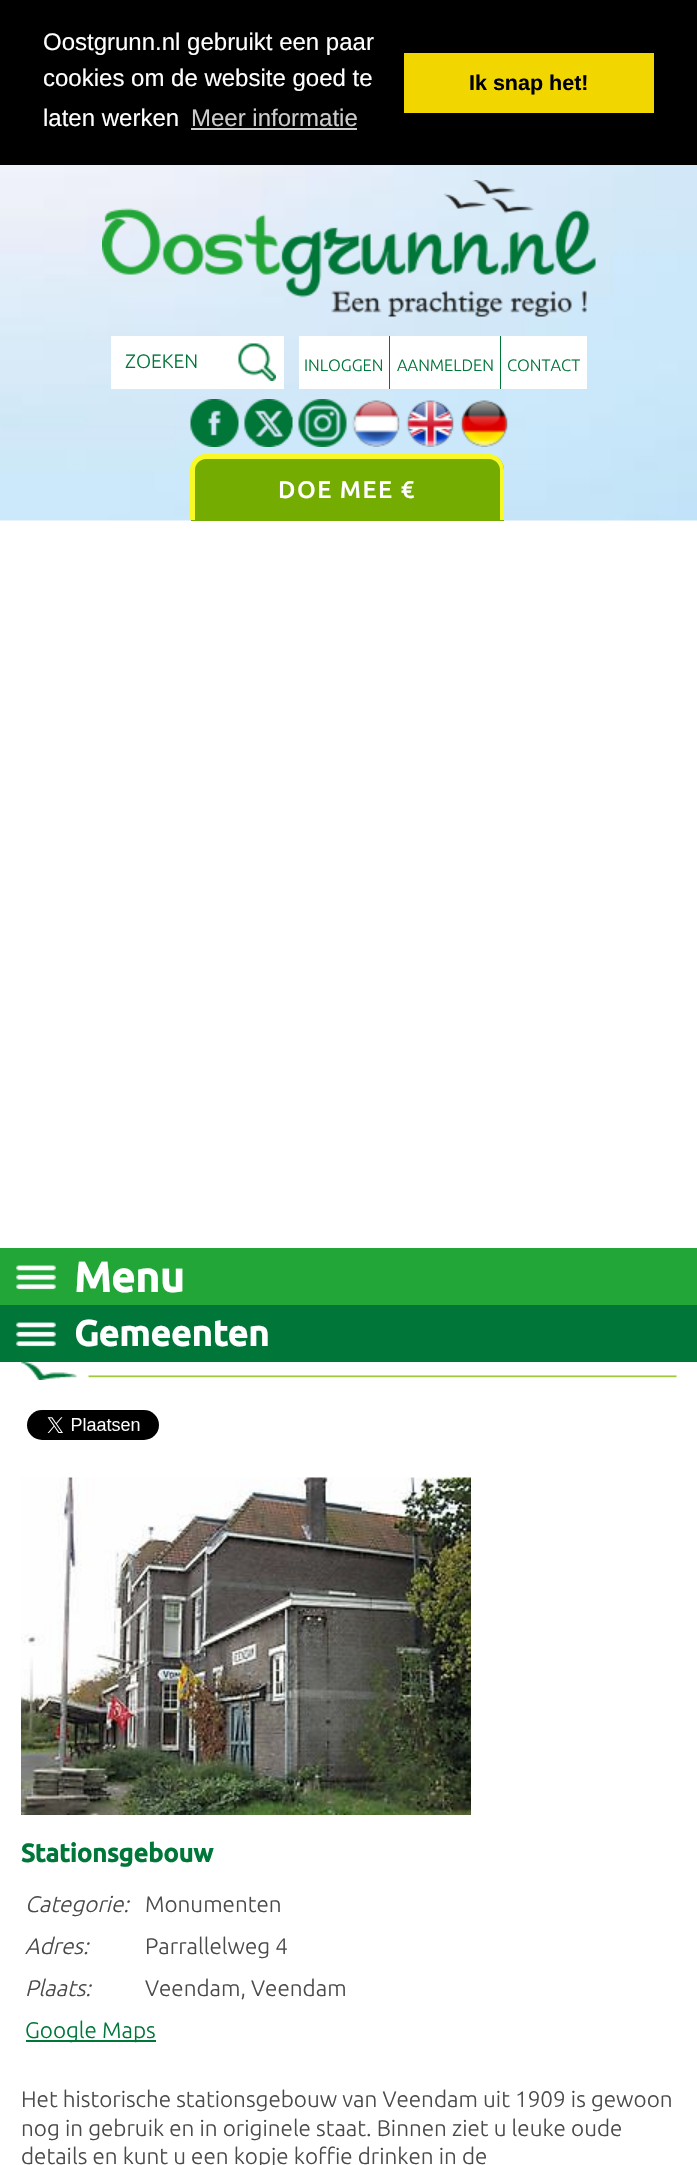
void draw(SkCanvas* canvas) {
  SkPaint paint;
  paint.setAntiAlias(true);
  auto face = [&](const char* family, int weight, float size, bool italic = false) {
    SkFontStyle style(weight, SkFontStyle::kNormal_Width,
      italic ? SkFontStyle::kItalic_Slant : SkFontStyle::kUpright_Slant);
    SkFont result(fontMgr->matchFamilyStyle(family, style), size);
    result.setSubpixel(true);
    return result;
  };
  auto writeSpaced = [&](const char* s, float x, float y, const SkFont& font, const SkPaint& ink, float letter, float word) {
    std::vector<SkGlyphID> glyphs(font.countText(s, strlen(s), SkTextEncoding::kUTF8));
    std::vector<float> xs(glyphs.size());
    font.textToGlyphs(s, strlen(s), SkTextEncoding::kUTF8, glyphs);
    font.getXPos(glyphs, xs, x);
    float extra = 0;
    for (size_t i = 0; i < glyphs.size(); i++) {
      xs[i] += extra;
      extra += letter + word * (glyphs[i] == font.unicharToGlyph(' '));
    }
    canvas->drawTextBlob(SkTextBlob::MakeFromPosHGlyphs(glyphs, xs, y, font), 0, 0, ink);
  };
  auto paste = [&](const char* path, float x, float y, float w, float h) {
    auto image = SkImages::DeferredFromEncodedData(SkData::MakeFromFileName(path));
    canvas->drawImageRect(image, SkRect::MakeXYWH(x, y, w, h), SkSamplingOptions());
  };
  auto shape = [&](const char* data, bool evenOdd = false) {
    SkPath result = *SkParsePath::FromSVGString(data);
    if (evenOdd) result.setFillType(SkPathFillType::kEvenOdd);
    return result;
  };
  canvas->clear(0xffffffff);
  {
    const struct { float x, y, w, h; SkColor color; } items[] = {
      {0, 0, 697, 165, 0xff000000},
      {191, 128, 166, 2, 0xffcccccc},
      {404, 53, 250, 60, 0xfff1d600},
    };
    for (auto [x, y, w, h, color] : items) {
      paint.setColor(color);
      canvas->drawRect(SkRect::MakeXYWH(x, y, w, h), paint);
    }
  }
  paste("img/1.png", 0, 165, 697, 356);
  paste("img/2.png", 102, 180, 494, 137);
  paint.setColor(0xffffffff);
  canvas->drawRect(SkRect::MakeXYWH(111, 336, 173, 53), paint);
  paste("img/3.png", 238, 343, 38, 38);
  {
    const struct { float x, y, w, h; SkColor color; } items[] = {
      {299, 336, 90, 53, 0xffffffff},
      {389, 336, 1, 53, 0xff007639},
      {390, 336, 110, 53, 0xffffffff},
      {500, 336, 1, 53, 0xff007639},
      {501, 336, 86, 53, 0xffffffff},
    };
    for (auto [x, y, w, h, color] : items) {
      paint.setColor(color);
      canvas->drawRect(SkRect::MakeXYWH(x, y, w, h), paint);
    }
  }
  paste("img/4.png", 190, 399, 49, 48);
  paste("img/5.png", 244, 399, 49, 48);
  paste("img/6.png", 298, 399, 49, 48);
  paste("img/7.png", 352, 400, 48, 47);
  paste("img/8.png", 406, 400, 48, 47);
  paste("img/9.png", 460, 400, 48, 47);
  paint.setColor(0xff75ac02);
  canvas->drawPath(shape("M206 455H489C497.5 455 504 461.5 504 470V521H191V470C191 461.5 197.5 455 206 455Z"), paint);
  paint.setColor(0xfff8f925);
  canvas->drawPath(shape("M206 454H489C497 454 504 461 504 470V520H190V470C190 461 197 454 206 454ZM206 459H489C495 459 500 464 500 470V520H195V470C195 464 200 459 206 459Z", true), paint);
  paint.setColor(0xff23a638);
  canvas->drawRect(SkRect::MakeXYWH(0, 1248, 697, 57), paint);
  paste("img/10.png", 16, 1265, 40, 25);
  paint.setColor(0xff007639);
  canvas->drawRect(SkRect::MakeXYWH(0, 1305, 697, 57), paint);
  paste("img/11.png", 16, 1322, 40, 25);
  paste("img/12.png", 21, 1362, 656, 18);
  paste("img/13.png", 27, 1410, 132, 30);
  paste("img/14.png", 21, 1477, 450, 338);
  canvas->drawRect(SkRect::MakeXYWH(26, 2040, 130, 2), paint);
  auto f0 = face("Liberation Sans", 400, 24);
  paint.setColor(0xffffffff);
  {
    const struct { const char* s; float x, y; } items[] = {
      {"Oostgrunn.nl gebruikt een paar", 43, 50},
      {"cookies om de website goed te", 43, 86},
      {"laten werken", 43, 126},
    };
    for (auto [s, x, y] : items) {
      canvas->drawString(s, x, y, f0, paint);
    }
  }
  paint.setColor(0xffcccccc);
  canvas->drawString("Meer informatie", 191, 126, f0, paint);
  auto f1 = face("Liberation Sans", 700, 21.5f);
  paint.setColor(0xff000000);
  canvas->drawString("Ik snap het!", 469, 90, f1, paint);
  auto f2 = face("Ubuntu", 300, 19.5f);
  paint.setColor(0xff007639);
  canvas->drawString("ZOEKEN", 125, 368, f2, paint);
  auto f3 = face("Ubuntu", 300, 16.5f);
  {
    const struct { const char* s; float x, y; } items[] = {
      {"INLOGGEN", 304, 371},
      {"AANMELDEN", 397, 371},
      {"CONTACT", 507, 371},
    };
    for (auto [s, x, y] : items) {
      canvas->drawString(s, x, y, f3, paint);
    }
  }
  auto f4 = face("Ubuntu", 500, 24);
  paint.setColor(0xffffffff);
  writeSpaced("DOE MEE €", 278, 498, f4, paint, 1.5f, 0);
  auto f5 = face("Ubuntu", 700, 42);
  canvas->drawString("Menu", 74, 1292, f5, paint);
  auto f6 = face("Ubuntu", 700, 36);
  canvas->drawString("Gemeenten", 74, 1346, f6, paint);
  auto f7 = face("Ubuntu", 700, 25.5f);
  paint.setColor(0xff007639);
  canvas->drawString("Stationsgebouw", 21, 1862, f7, paint);
  auto f8 = face("Ubuntu", 300, 22.5f, true);
  paint.setColor(0xff4a4a49);
  canvas->drawString("Categorie:", 25, 1912, f8, paint);
  auto f9 = face("Ubuntu", 300, 22.5f);
  canvas->drawString("Monumenten", 145, 1912, f9, paint);
  canvas->drawString("Adres:", 25, 1954, f8, paint);
  canvas->drawString("Parrallelweg 4", 145, 1954, f9, paint);
  canvas->drawString("Plaats:", 25, 1996, f8, paint);
  canvas->drawString("Veendam, Veendam", 145, 1996, f9, paint);
  paint.setColor(0xff007639);
  canvas->drawString("Google Maps", 25, 2038, f9, paint);
  paint.setColor(0xff4a4a49);
  {
    const struct { const char* s; float x, y; } items[] = {
      {"Het historische stationsgebouw van Veendam uit 1909 is gewoon", 21, 2107},
      {"nog in gebruik en in originele staat. Binnen ziet u leuke oude", 21, 2136},
      {"details en kunt u een kopje koffie drinken in de", 21, 2164},
    };
    for (auto [s, x, y] : items) {
      canvas->drawString(s, x, y, f9, paint);
    }
  }
}
